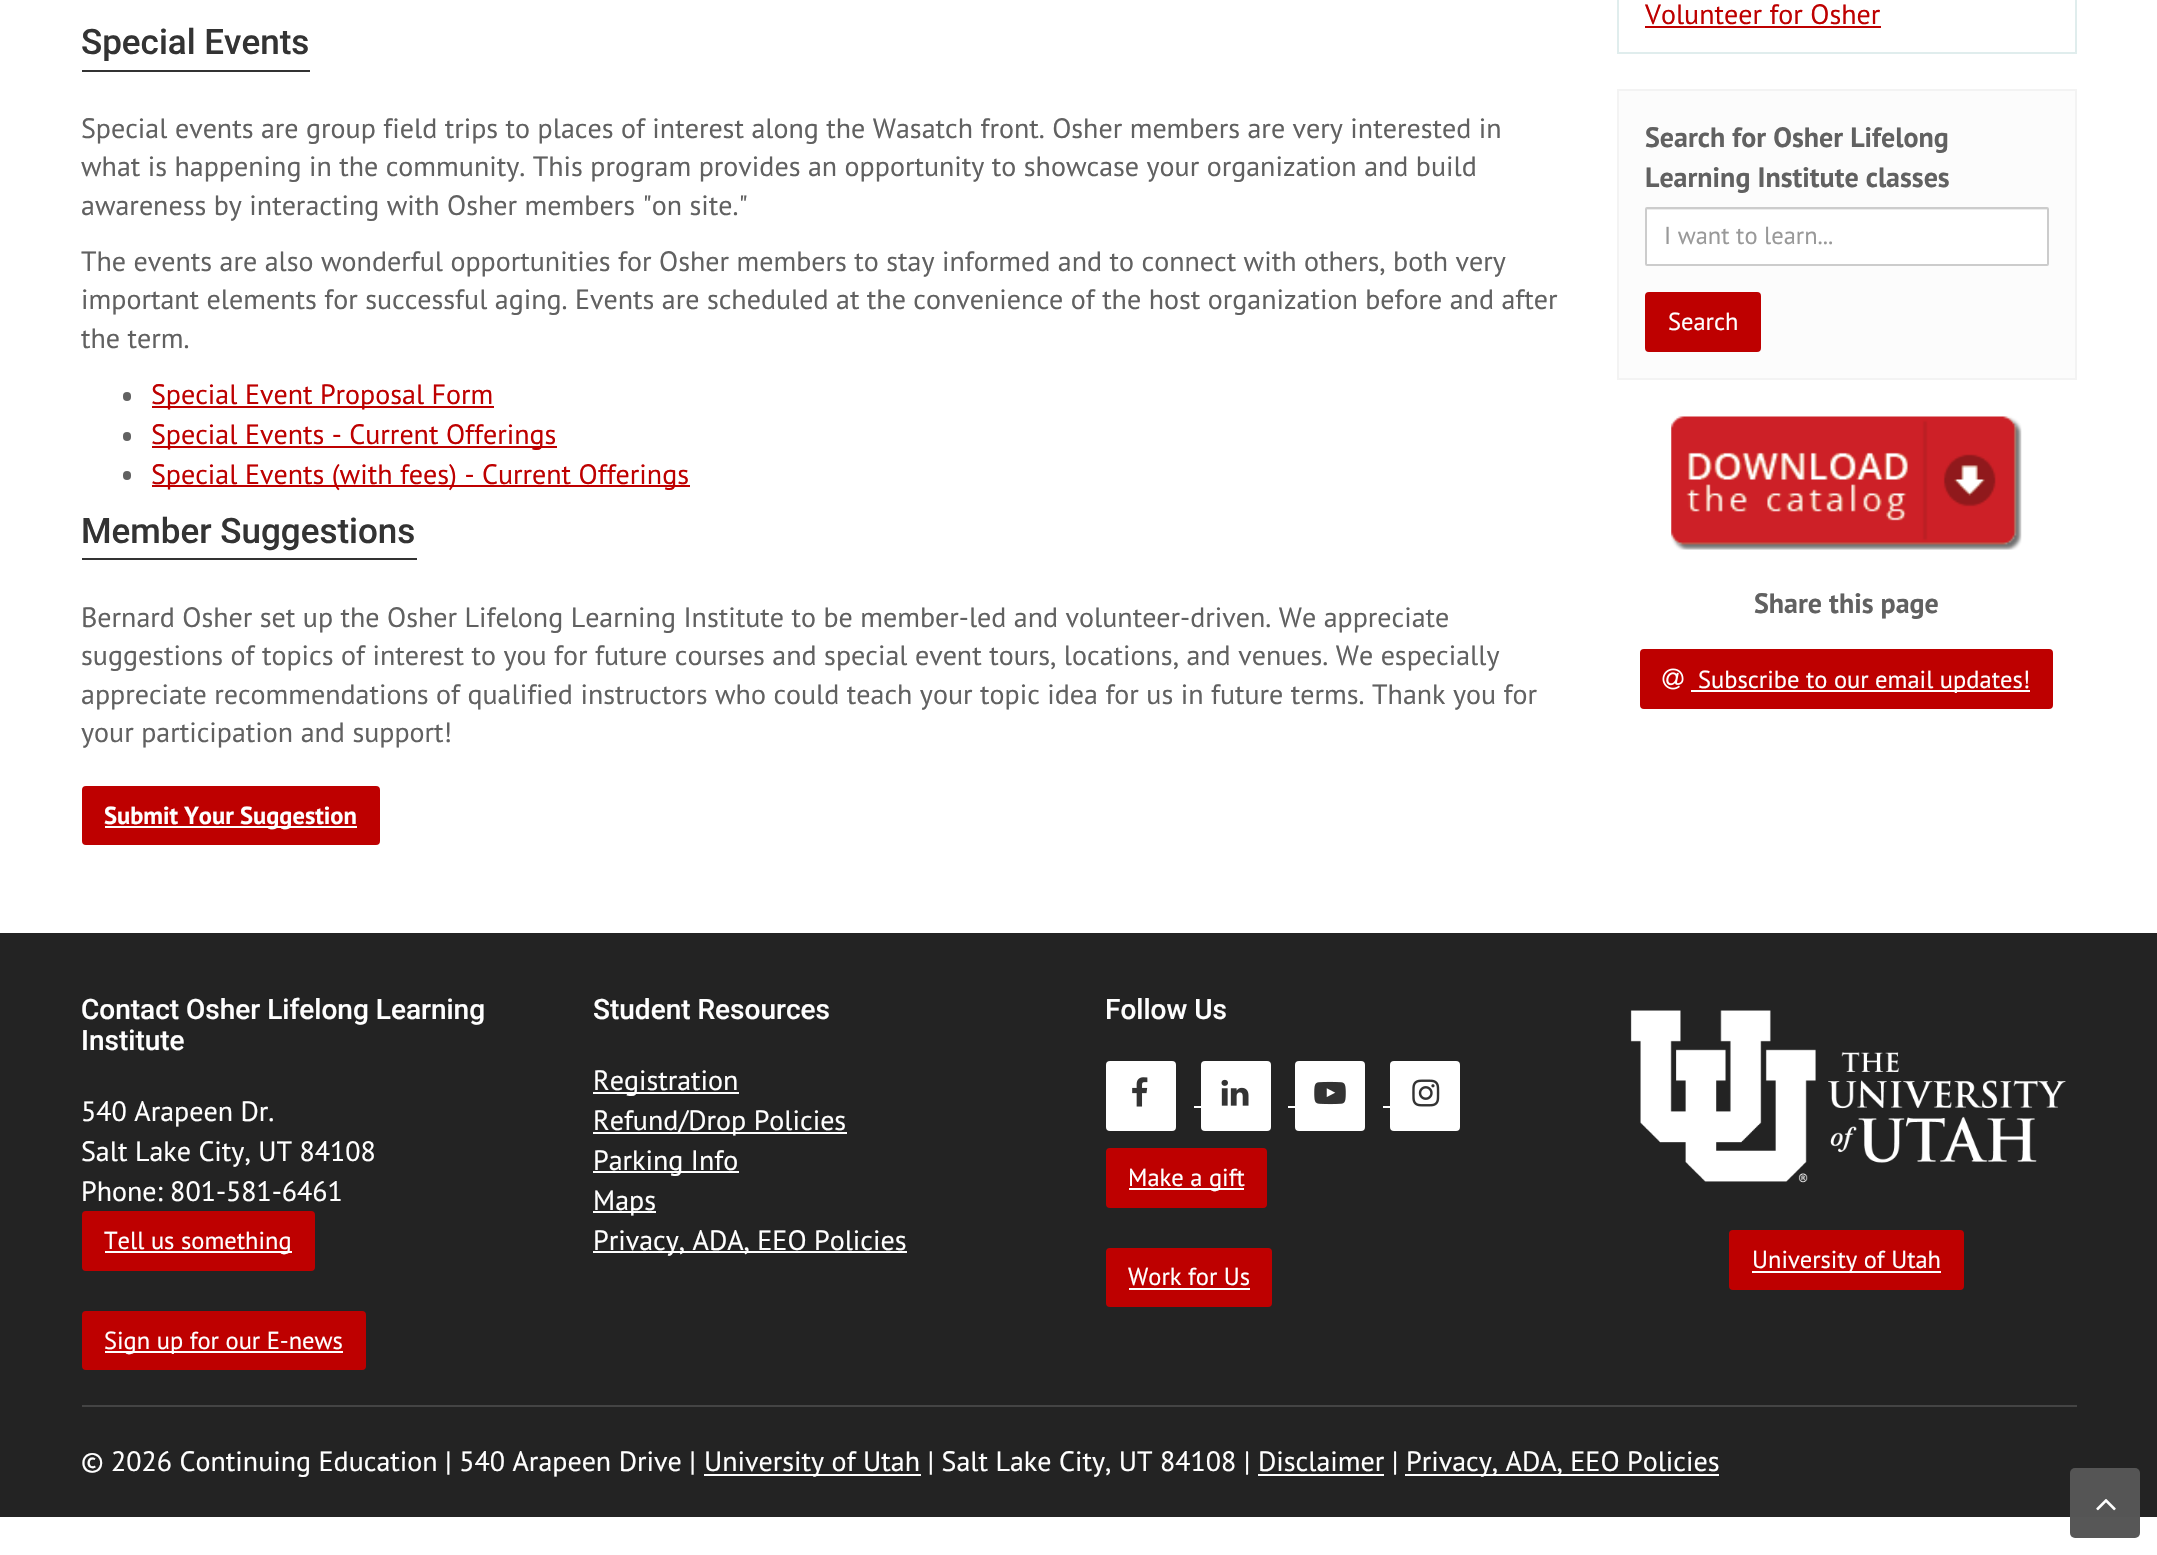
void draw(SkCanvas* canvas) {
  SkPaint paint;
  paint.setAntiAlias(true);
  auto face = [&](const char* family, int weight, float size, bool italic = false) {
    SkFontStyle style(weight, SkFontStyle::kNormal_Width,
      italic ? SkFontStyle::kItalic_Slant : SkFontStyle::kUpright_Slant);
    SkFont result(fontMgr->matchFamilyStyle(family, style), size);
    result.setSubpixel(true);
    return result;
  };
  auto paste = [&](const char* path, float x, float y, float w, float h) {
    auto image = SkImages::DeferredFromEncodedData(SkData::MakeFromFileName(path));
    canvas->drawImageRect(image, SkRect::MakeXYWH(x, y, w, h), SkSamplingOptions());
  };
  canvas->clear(0xffffffff);
  paint.setColor(0xff333333);
  canvas->drawRect(SkRect::MakeXYWH(82, 70, 228, 2), paint);
  paint.setColor(0xff616161);
  canvas->drawRoundRect(SkRect::MakeXYWH(123, 392, 8, 9), 4, 4, paint);
  paint.setColor(0xffbe0000);
  canvas->drawRect(SkRect::MakeXYWH(152, 406, 342, 2), paint);
  paint.setColor(0xff616161);
  canvas->drawRoundRect(SkRect::MakeXYWH(123, 432, 8, 9), 4, 4, paint);
  paint.setColor(0xffbe0000);
  canvas->drawRect(SkRect::MakeXYWH(152, 446, 405, 2), paint);
  paint.setColor(0xff616161);
  canvas->drawRoundRect(SkRect::MakeXYWH(123, 471, 8, 9), 4, 4, paint);
  paint.setColor(0xffbe0000);
  canvas->drawRect(SkRect::MakeXYWH(152, 485, 538, 2), paint);
  paint.setColor(0xff333333);
  canvas->drawRect(SkRect::MakeXYWH(82, 558, 335, 2), paint);
  paint.setColor(0xffbe0000);
  canvas->drawRoundRect(SkRect::MakeXYWH(83, 787, 296, 57), 3, 3, paint);
  paint.setStroke(true);
  paint.setStrokeWidth(2);
  canvas->drawRoundRect(SkRect::MakeXYWH(83, 787, 296, 57), 3, 3, paint);
  paint.setStroke(false);
  paint.setColor(0xffffffff);
  canvas->drawRect(SkRect::MakeXYWH(105, 826, 252, 2), paint);
  paint.setStroke(true);
  paint.setColor(0xffe0eded);
  canvas->drawRect(SkRect::MakeXYWH(1618, -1, 458, 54), paint);
  paint.setStroke(false);
  paint.setColor(0xffbe0000);
  canvas->drawRect(SkRect::MakeXYWH(1645, 26, 236, 2), paint);
  paint.setColor(0xfffcfcfc);
  canvas->drawRect(SkRect::MakeXYWH(1618, 90, 458, 289), paint);
  paint.setStroke(true);
  paint.setColor(0xfff3f3f3);
  canvas->drawRect(SkRect::MakeXYWH(1618, 90, 458, 289), paint);
  paint.setStroke(false);
  paint.setColor(0xffffffff);
  canvas->drawRoundRect(SkRect::MakeXYWH(1645, 207, 404, 59), 2, 2, paint);
  paint.setColor(0xffececec);
  canvas->drawRect(SkRect::MakeXYWH(1647, 209, 401, 1), paint);
  paint.setStroke(true);
  paint.setColor(0xffcccccc);
  canvas->drawRoundRect(SkRect::MakeXYWH(1646, 208, 402, 57), 1, 1, paint);
  paint.setStroke(false);
  paint.setColor(0xffbe0000);
  canvas->drawRoundRect(SkRect::MakeXYWH(1646, 293, 114, 58), 3, 3, paint);
  paint.setStroke(true);
  canvas->drawRoundRect(SkRect::MakeXYWH(1646, 293, 114, 58), 3, 3, paint);
  paste("img/1.png", 1671, 416, 351, 134);
  paint.setStroke(false);
  canvas->drawRoundRect(SkRect::MakeXYWH(1641, 650, 411, 58), 3, 3, paint);
  paint.setStroke(true);
  canvas->drawRoundRect(SkRect::MakeXYWH(1641, 650, 411, 58), 3, 3, paint);
  paste("img/2.png", 1662, 668, 22, 22);
  paint.setStroke(false);
  paint.setColor(0xffffffff);
  canvas->drawRect(SkRect::MakeXYWH(1691, 690, 339, 2), paint);
  paint.setColor(0xff232323);
  canvas->drawRect(SkRect::MakeXYWH(0, 933, 2157, 584), paint);
  paint.setColor(0xffbe0000);
  canvas->drawRoundRect(SkRect::MakeXYWH(83, 1212, 231, 58), 3, 3, paint);
  paint.setStroke(true);
  canvas->drawRoundRect(SkRect::MakeXYWH(83, 1212, 231, 58), 3, 3, paint);
  paint.setStroke(false);
  paint.setColor(0xffffffff);
  canvas->drawRect(SkRect::MakeXYWH(105, 1251, 187, 2), paint);
  paint.setColor(0xffbe0000);
  canvas->drawRoundRect(SkRect::MakeXYWH(83, 1312, 282, 57), 3, 3, paint);
  paint.setStroke(true);
  canvas->drawRoundRect(SkRect::MakeXYWH(83, 1312, 282, 57), 3, 3, paint);
  paint.setStroke(false);
  {
    const struct { float x, y, w, h; SkColor color; } items[] = {
      {105, 1351, 238, 2, 0xffffffff},
      {593, 1092, 146, 2, 0xffffffff},
      {593, 1132, 254, 2, 0xffffffff},
      {593, 1171, 146, 2, 0xffffffff},
      {593, 1211, 63, 2, 0xffffffff},
      {593, 1251, 314, 2, 0xffffffff},
    };
    for (auto [x, y, w, h, color] : items) {
      paint.setColor(color);
      canvas->drawRect(SkRect::MakeXYWH(x, y, w, h), paint);
    }
  }
  canvas->drawRoundRect(SkRect::MakeXYWH(1106, 1061, 70, 70), 4, 4, paint);
  paste("img/3.png", 1132, 1077, 16, 30);
  canvas->drawRect(SkRect::MakeXYWH(1194, 1106, 7, 2), paint);
  canvas->drawRoundRect(SkRect::MakeXYWH(1201, 1061, 70, 70), 4, 4, paint);
  paste("img/4.png", 1221, 1079, 28, 27);
  canvas->drawRect(SkRect::MakeXYWH(1288, 1106, 7, 2), paint);
  canvas->drawRoundRect(SkRect::MakeXYWH(1295, 1061, 70, 70), 4, 4, paint);
  paste("img/5.png", 1314, 1081, 32, 24);
  canvas->drawRect(SkRect::MakeXYWH(1383, 1106, 7, 2), paint);
  canvas->drawRoundRect(SkRect::MakeXYWH(1390, 1061, 70, 70), 4, 4, paint);
  paste("img/6.png", 1412, 1079, 28, 28);
  paint.setColor(0xffbe0000);
  canvas->drawRoundRect(SkRect::MakeXYWH(1107, 1149, 159, 58), 3, 3, paint);
  paint.setStroke(true);
  canvas->drawRoundRect(SkRect::MakeXYWH(1107, 1149, 159, 58), 3, 3, paint);
  paint.setStroke(false);
  paint.setColor(0xffffffff);
  canvas->drawRect(SkRect::MakeXYWH(1129, 1188, 115, 2), paint);
  paint.setColor(0xffbe0000);
  canvas->drawRoundRect(SkRect::MakeXYWH(1107, 1249, 164, 57), 3, 3, paint);
  paint.setStroke(true);
  canvas->drawRoundRect(SkRect::MakeXYWH(1107, 1249, 164, 57), 3, 3, paint);
  paint.setStroke(false);
  paint.setColor(0xffffffff);
  canvas->drawRect(SkRect::MakeXYWH(1129, 1288, 121, 2), paint);
  paste("img/7.png", 1630, 1010, 436, 173);
  paint.setColor(0xffbe0000);
  canvas->drawRoundRect(SkRect::MakeXYWH(1730, 1231, 233, 58), 3, 3, paint);
  paint.setStroke(true);
  canvas->drawRoundRect(SkRect::MakeXYWH(1730, 1231, 233, 58), 3, 3, paint);
  paint.setStroke(false);
  {
    const struct { float x, y, w, h; SkColor color; } items[] = {
      {1752, 1271, 189, 2, 0xffffffff},
      {82, 1405, 1995, 2, 0xff444444},
      {704, 1474, 217, 2, 0xffffffff},
      {1405, 1474, 314, 2, 0xffffffff},
      {1258, 1474, 126, 2, 0xffffffff},
    };
    for (auto [x, y, w, h, color] : items) {
      paint.setColor(color);
      canvas->drawRect(SkRect::MakeXYWH(x, y, w, h), paint);
    }
  }
  paint.setColor(0xfc555555);
  canvas->drawRoundRect(SkRect::MakeXYWH(2070, 1468, 70, 70), 5, 5, paint);
  paste("img/8.png", 2096, 1499, 20, 12);
  auto f0 = face("Roboto", 500, 35);
  paint.setColor(0xff333333);
  canvas->drawString("Special Events", 81, 54, f0, paint);
  auto f1 = face("PT Sans", 400, 28);
  paint.setColor(0xff616161);
  {
    const struct { const char* s; float x, y; } items[] = {
      {"Special events are group field trips to places of interest along the Wasatch front. Osher members are very interested in", 81, 138},
      {"what is happening in the community. This program provides an opportunity to showcase your organization and build", 81, 176},
      {"awareness by interacting with Osher members \"on site.\"", 81, 215},
      {"The events are also wonderful opportunities for Osher members to stay informed and to connect with others, both very", 81, 271},
      {"important elements for successful aging. Events are scheduled at the convenience of the host organization before and after", 81, 309},
      {"the term.", 81, 348},
    };
    for (auto [s, x, y] : items) {
      canvas->drawString(s, x, y, f1, paint);
    }
  }
  paint.setColor(0xffbe0000);
  {
    const struct { const char* s; float x, y; } items[] = {
      {"Special Event Proposal Form", 151, 404},
      {"Special Events - Current Offerings", 151, 444},
      {"Special Events (with fees) - Current Offerings", 151, 484},
    };
    for (auto [s, x, y] : items) {
      canvas->drawString(s, x, y, f1, paint);
    }
  }
  paint.setColor(0xff333333);
  canvas->drawString("Member Suggestions", 81, 543, f0, paint);
  paint.setColor(0xff616161);
  {
    const struct { const char* s; float x, y; } items[] = {
      {"Bernard Osher set up the Osher Lifelong Learning Institute to be member-led and volunteer-driven. We appreciate", 81, 627},
      {"suggestions of topics of interest to you for future courses and special event tours, locations, and venues. We especially", 81, 665},
      {"appreciate recommendations of qualified instructors who could teach your topic idea for us in future terms. Thank you for", 81, 704},
      {"your participation and support!", 81, 742},
    };
    for (auto [s, x, y] : items) {
      canvas->drawString(s, x, y, f1, paint);
    }
  }
  auto f2 = face("PT Sans", 700, 24.5f);
  paint.setColor(0xffffffff);
  canvas->drawString("Submit Your Suggestion", 104, 824, f2, paint);
  paint.setColor(0xffbe0000);
  canvas->drawString("Volunteer for Osher", 1645, 24, f1, paint);
  auto f3 = face("PT Sans", 700, 28);
  paint.setColor(0xff616161);
  canvas->drawString("Search for Osher Lifelong", 1645, 147, f3, paint);
  canvas->drawString("Learning Institute classes", 1645, 187, f3, paint);
  auto f4 = face("PT Sans", 400, 24.5f);
  paint.setColor(0xff999999);
  canvas->drawString("I want to learn...", 1664, 244, f4, paint);
  paint.setColor(0xffffffff);
  canvas->drawString("Search", 1668, 330, f4, paint);
  paint.setColor(0xff616161);
  canvas->drawString("Share this page", 1754, 613, f3, paint);
  paint.setColor(0xffffffff);
  canvas->drawString("Subscribe to our email updates!", 1698, 688, f4, paint);
  auto f5 = face("Roboto", 500, 28);
  canvas->drawString("Contact Osher Lifelong Learning", 81, 1019, f5, paint);
  canvas->drawString("Institute", 81, 1050, f5, paint);
  {
    const struct { const char* s; float x, y; } items[] = {
      {"540 Arapeen Dr.", 81, 1121},
      {"Salt Lake City, UT 84108", 81, 1161},
      {"Phone: 801-581-6461", 81, 1201},
    };
    for (auto [s, x, y] : items) {
      canvas->drawString(s, x, y, f1, paint);
    }
  }
  canvas->drawString("Tell us something", 104, 1249, f4, paint);
  canvas->drawString("Sign up for our E-news", 104, 1349, f4, paint);
  canvas->drawString("Student Resources", 593, 1019, f5, paint);
  {
    const struct { const char* s; float x, y; } items[] = {
      {"Registration", 593, 1090},
      {"Refund/Drop Policies", 593, 1130},
      {"Parking Info", 593, 1170},
      {"Maps", 593, 1210},
      {"Privacy, ADA, EEO Policies", 593, 1250},
    };
    for (auto [s, x, y] : items) {
      canvas->drawString(s, x, y, f1, paint);
    }
  }
  canvas->drawString("Follow Us", 1105, 1019, f5, paint);
  {
    const struct { const char* s; float x, y; } items[] = {
      {"Make a gift", 1128, 1186},
      {"Work for Us", 1128, 1285},
      {"University of Utah", 1752, 1268},
    };
    for (auto [s, x, y] : items) {
      canvas->drawString(s, x, y, f4, paint);
    }
  }
  {
    const struct { const char* s; float x, y; } items[] = {
      {"© 2026 Continuing Education | 540 Arapeen Drive |", 81, 1471},
      {"University of Utah | Salt Lake City, UT 84108 | Disclaimer |", 704, 1471},
      {"Privacy, ADA, EEO Policies", 1406, 1471},
    };
    for (auto [s, x, y] : items) {
      canvas->drawString(s, x, y, f1, paint);
    }
  }
}
